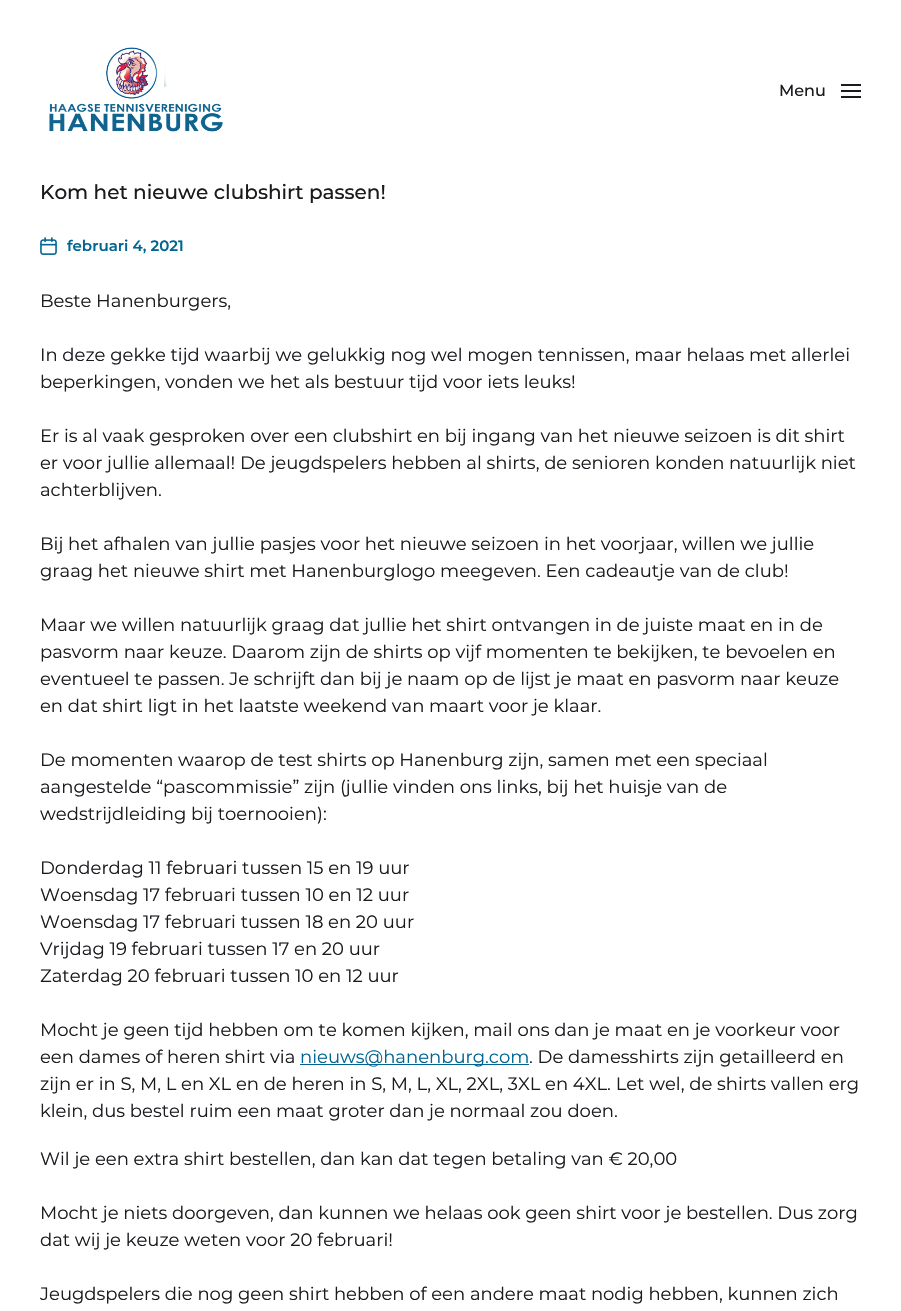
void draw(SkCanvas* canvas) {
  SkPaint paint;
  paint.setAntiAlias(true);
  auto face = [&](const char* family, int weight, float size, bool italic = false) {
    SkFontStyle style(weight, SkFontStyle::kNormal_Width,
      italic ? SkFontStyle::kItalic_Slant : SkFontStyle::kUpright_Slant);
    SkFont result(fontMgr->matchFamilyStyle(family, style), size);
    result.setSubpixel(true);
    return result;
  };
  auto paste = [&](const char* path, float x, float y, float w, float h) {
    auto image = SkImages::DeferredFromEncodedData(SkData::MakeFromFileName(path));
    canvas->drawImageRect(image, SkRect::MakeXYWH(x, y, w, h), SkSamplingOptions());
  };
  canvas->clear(0xffffffff);
  paste("img/1.png", 49, 47, 174, 85);
  {
    const struct { float x, y, w, h; SkColor color; } items[] = {
      {841, 84, 20, 2, 0xff1a1b1f},
      {841, 90, 20, 2, 0xff1a1b1f},
      {841, 96, 20, 2, 0xff1a1b1f},
    };
    for (auto [x, y, w, h, color] : items) {
      paint.setColor(color);
      canvas->drawRect(SkRect::MakeXYWH(x, y, w, h), paint);
    }
  }
  paste("img/2.png", 40, 237, 17, 18);
  paint.setColor(0xff006592);
  canvas->drawRect(SkRect::MakeXYWH(300, 1064, 229, 1), paint);
  auto f0 = face("Montserrat", 500, 16);
  paint.setColor(0xff1a1b1f);
  canvas->drawString("Menu", 779, 96, f0, paint);
  auto f1 = face("Montserrat", 500, 20);
  canvas->drawString("Kom het nieuwe clubshirt passen!", 40, 199, f1, paint);
  auto f2 = face("Montserrat", 600, 15);
  paint.setColor(0xff006592);
  canvas->drawString("februari 4, 2021", 67, 251, f2, paint);
  auto f3 = face("Montserrat", 400, 18);
  paint.setColor(0xff1a1b1f);
  {
    const struct { const char* s; float x, y; } items[] = {
      {"Beste Hanenburgers,", 40, 307},
      {"In deze gekke tijd waarbij we gelukkig nog wel mogen tennissen, maar helaas met allerlei", 40, 361},
      {"beperkingen, vonden we het als bestuur tijd voor iets leuks!", 40, 388},
      {"Er is al vaak gesproken over een clubshirt en bij ingang van het nieuwe seizoen is dit shirt", 40, 442},
      {"er voor jullie allemaal! De jeugdspelers hebben al shirts, de senioren konden natuurlijk niet", 40, 469},
      {"achterblijven.", 40, 496},
      {"Bij het afhalen van jullie pasjes voor het nieuwe seizoen in het voorjaar, willen we jullie", 40, 550},
      {"graag het nieuwe shirt met Hanenburglogo meegeven. Een cadeautje van de club!", 40, 577},
      {"Maar we willen natuurlijk graag dat jullie het shirt ontvangen in de juiste maat en in de", 40, 631},
      {"pasvorm naar keuze. Daarom zijn de shirts op vijf momenten te bekijken, te bevoelen en", 40, 658},
      {"eventueel te passen. Je schrijft dan bij je naam op de lijst je maat en pasvorm naar keuze", 40, 685},
      {"en dat shirt ligt in het laatste weekend van maart voor je klaar.", 40, 712},
      {"De momenten waarop de test shirts op Hanenburg zijn, samen met een speciaal", 40, 766},
      {"aangestelde “pascommissie” zijn (jullie vinden ons links, bij het huisje van de", 40, 793},
      {"wedstrijdleiding bij toernooien):", 40, 820},
      {"Donderdag 11 februari tussen 15 en 19 uur", 40, 874},
      {"Woensdag 17 februari tussen 10 en 12 uur", 40, 901},
      {"Woensdag 17 februari tussen 18 en 20 uur", 40, 928},
      {"Vrijdag 19 februari tussen 17 en 20 uur", 40, 955},
      {"Zaterdag 20 februari tussen 10 en 12 uur", 40, 982},
      {"Mocht je geen tijd hebben om te komen kijken, mail ons dan je maat en je voorkeur voor", 40, 1036},
      {"een dames of heren shirt via", 40, 1063},
    };
    for (auto [s, x, y] : items) {
      canvas->drawString(s, x, y, f3, paint);
    }
  }
  paint.setColor(0xff006592);
  canvas->drawString("nieuws@hanenburg.com", 300, 1063, f3, paint);
  paint.setColor(0xff1a1b1f);
  {
    const struct { const char* s; float x, y; } items[] = {
      {". De damesshirts zijn getailleerd en", 529, 1063},
      {"zijn er in S, M, L en XL en de heren in S, M, L, XL, 2XL, 3XL en 4XL. Let wel, de shirts vallen erg", 40, 1090},
      {"klein, dus bestel ruim een maat groter dan je normaal zou doen.", 40, 1117},
      {"Wil je een extra shirt bestellen, dan kan dat tegen betaling van € 20,00", 40, 1165},
      {"Mocht je niets doorgeven, dan kunnen we helaas ook geen shirt voor je bestellen. Dus zorg", 40, 1219},
      {"dat wij je keuze weten voor 20 februari!", 40, 1246},
      {"Jeugdspelers die nog geen shirt hebben of een andere maat nodig hebben, kunnen zich", 40, 1300},
    };
    for (auto [s, x, y] : items) {
      canvas->drawString(s, x, y, f3, paint);
    }
  }
}
